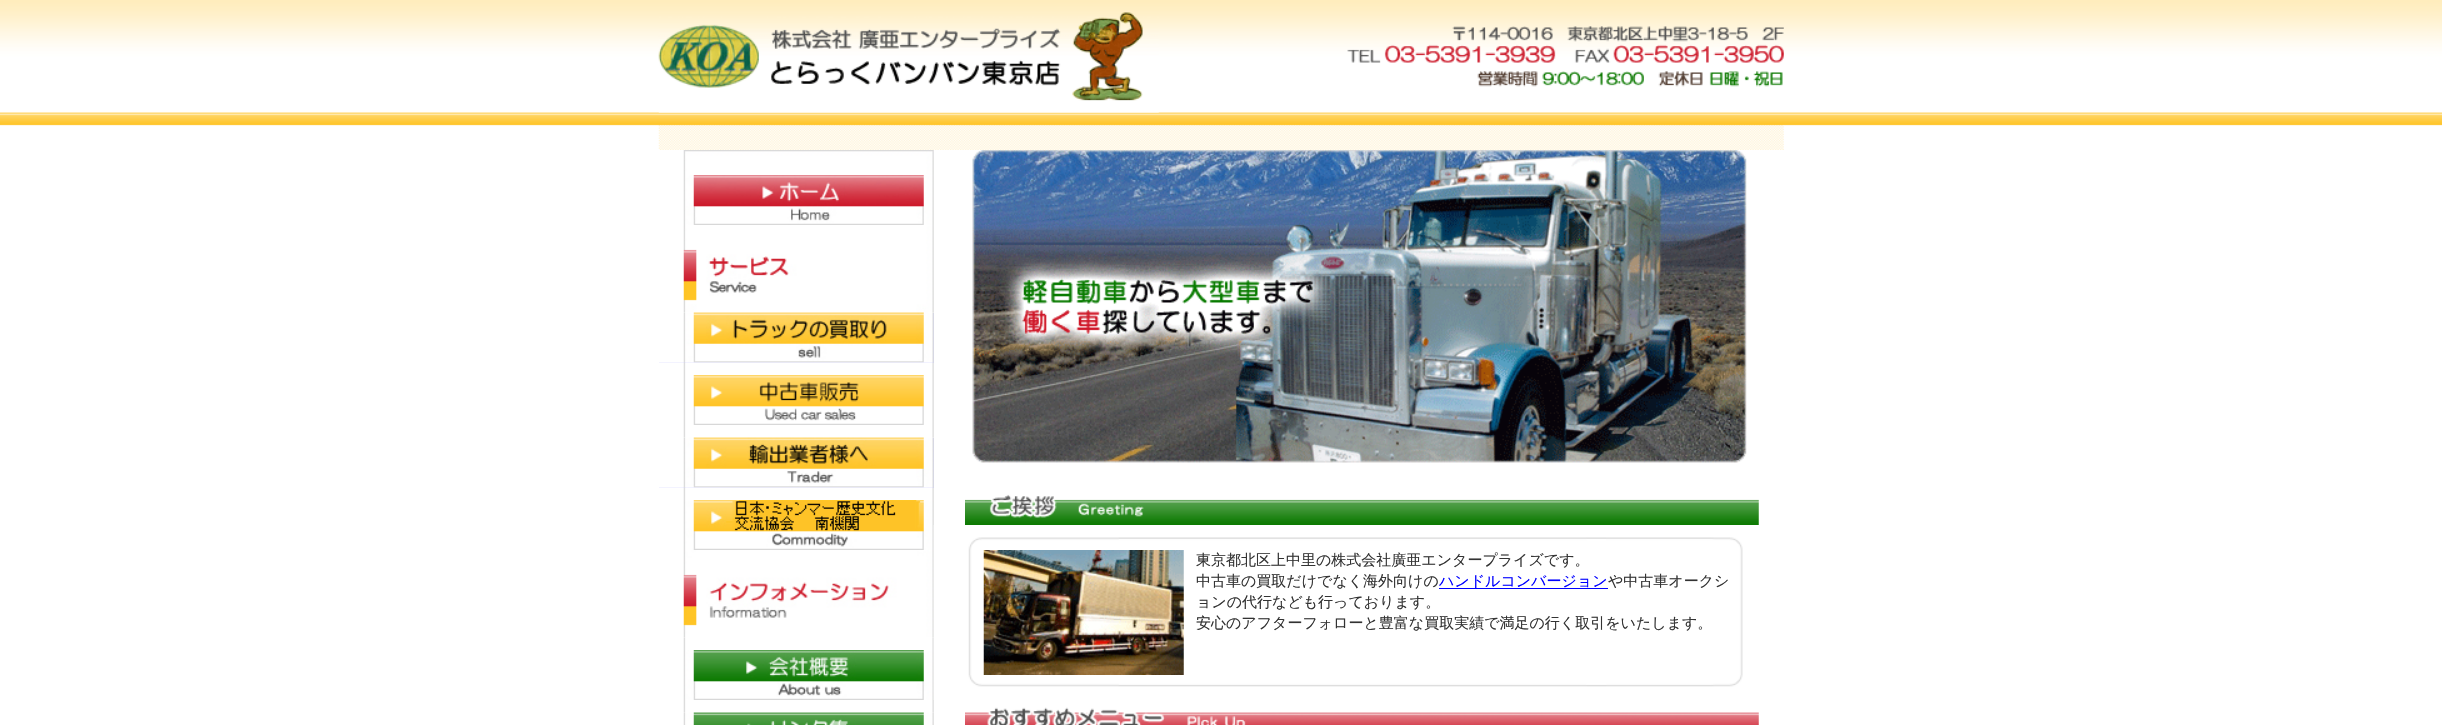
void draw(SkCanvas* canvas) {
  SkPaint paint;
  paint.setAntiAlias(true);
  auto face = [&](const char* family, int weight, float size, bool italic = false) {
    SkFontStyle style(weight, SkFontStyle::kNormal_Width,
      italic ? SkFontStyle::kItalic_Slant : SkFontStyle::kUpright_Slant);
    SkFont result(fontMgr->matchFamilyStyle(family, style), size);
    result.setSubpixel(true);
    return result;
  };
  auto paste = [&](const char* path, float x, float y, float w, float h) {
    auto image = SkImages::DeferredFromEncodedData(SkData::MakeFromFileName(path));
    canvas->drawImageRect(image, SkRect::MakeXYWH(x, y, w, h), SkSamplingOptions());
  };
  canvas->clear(0xffffffff);
  paste("img/1.png", 0, 0, 2442, 126);
  paste("img/2.png", 658, 26, 1126, 124);
  paste("img/3.png", 658, 12, 501, 101);
  paste("img/4.png", 683, 150, 251, 25);
  paste("img/5.png", 659, 175, 275, 50);
  paste("img/6.png", 683, 225, 251, 88);
  paint.setColor(0xffcdcdff);
  canvas->drawRect(SkRect::MakeXYWH(659, 313, 275, 50), paint);
  paste("img/7.png", 659, 312, 275, 51);
  paste("img/8.png", 659, 362, 275, 13);
  paste("img/9.png", 659, 375, 275, 50);
  paste("img/10.png", 683, 425, 251, 13);
  canvas->drawRect(SkRect::MakeXYWH(659, 438, 275, 50), paint);
  paste("img/11.png", 659, 437, 275, 51);
  paste("img/12.png", 659, 487, 275, 13);
  paste("img/13.png", 659, 500, 275, 50);
  paste("img/14.png", 683, 550, 251, 88);
  paste("img/15.png", 683, 637, 251, 13);
  paste("img/16.png", 659, 650, 275, 50);
  paste("img/10.png", 683, 700, 251, 13);
  paste("img/17.png", 659, 712, 275, 13);
  paste("img/18.png", 972, 150, 775, 313);
  paste("img/19.png", 965, 494, 794, 31);
  paste("img/20.png", 933, 525, 810, 25);
  paste("img/21.png", 933, 550, 810, 125);
  paste("img/22.png", 983, 550, 201, 125);
  paint.setColor(0xff0000ff);
  canvas->drawRect(SkRect::MakeXYWH(1439, 588, 169, 1), paint);
  paste("img/23.png", 933, 675, 810, 25);
  paste("img/24.png", 965, 707, 794, 18);
  auto f0 = face("WenQuanYi Zen Hei", 500, 15);
  paint.setColor(0xff333333);
  canvas->drawString("東京都北区上中里の株式会社廣亜エンタープライズです。", 1196, 565, f0, paint);
  canvas->drawString("中古車の買取だけでなく海外向けの", 1196, 586, f0, paint);
  paint.setColor(0xff0000ff);
  canvas->drawString("ハンドルコンバージョン", 1439, 586, f0, paint);
  paint.setColor(0xff333333);
  {
    const struct { const char* s; float x, y; } items[] = {
      {"や中古車オークシ", 1608, 586},
      {"ョンの代行なども行っております。", 1196, 607},
      {"安心のアフターフォローと豊富な買取実績で満足の行く取引をいたします。", 1196, 628},
    };
    for (auto [s, x, y] : items) {
      canvas->drawString(s, x, y, f0, paint);
    }
  }
}
